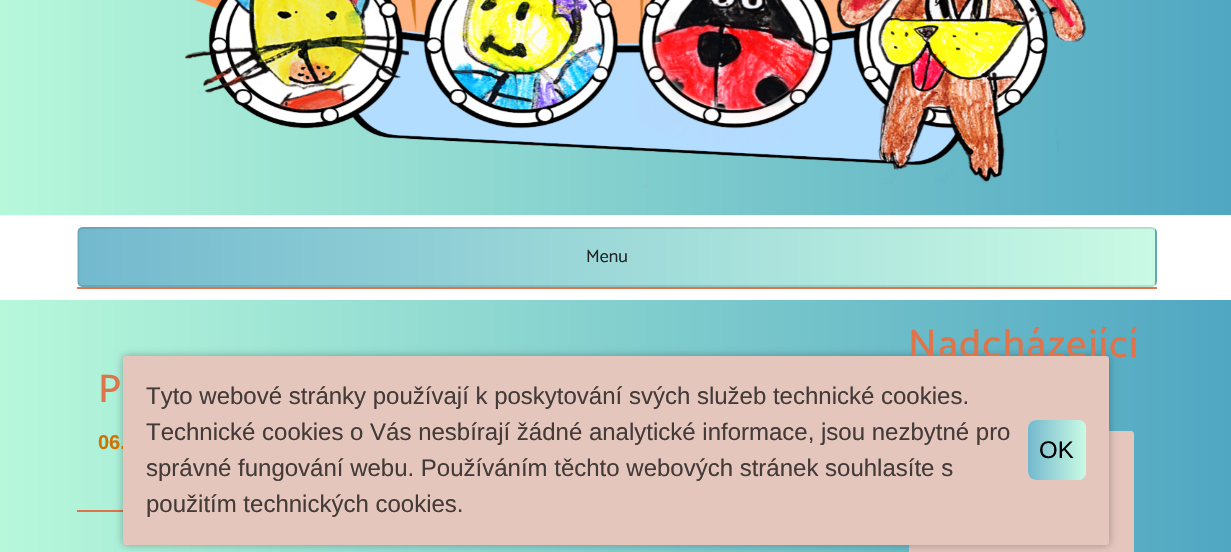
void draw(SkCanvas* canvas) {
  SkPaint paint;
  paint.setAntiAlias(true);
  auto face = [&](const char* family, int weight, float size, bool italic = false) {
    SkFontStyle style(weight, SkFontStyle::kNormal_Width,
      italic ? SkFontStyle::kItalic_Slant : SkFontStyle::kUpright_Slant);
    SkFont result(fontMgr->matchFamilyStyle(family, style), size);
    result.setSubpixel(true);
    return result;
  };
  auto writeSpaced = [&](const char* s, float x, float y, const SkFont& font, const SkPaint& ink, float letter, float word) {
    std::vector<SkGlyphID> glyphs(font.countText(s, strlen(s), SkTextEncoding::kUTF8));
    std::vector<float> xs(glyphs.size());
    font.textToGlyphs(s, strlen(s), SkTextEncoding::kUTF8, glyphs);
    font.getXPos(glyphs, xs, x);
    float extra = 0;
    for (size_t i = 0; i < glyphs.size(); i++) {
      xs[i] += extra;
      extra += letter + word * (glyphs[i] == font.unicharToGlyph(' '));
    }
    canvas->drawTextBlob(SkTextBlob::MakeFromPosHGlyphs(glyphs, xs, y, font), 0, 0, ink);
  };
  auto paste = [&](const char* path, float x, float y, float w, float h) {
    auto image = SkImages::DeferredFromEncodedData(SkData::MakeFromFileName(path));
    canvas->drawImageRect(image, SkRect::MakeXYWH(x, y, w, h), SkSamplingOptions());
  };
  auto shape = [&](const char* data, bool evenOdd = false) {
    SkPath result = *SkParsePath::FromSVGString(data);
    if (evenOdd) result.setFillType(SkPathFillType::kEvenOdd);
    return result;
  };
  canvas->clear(0xffffffff);
  {
    const SkColor colors[] = {0xffb7f8db, 0xff50a7c2};
    const float stops[] = {0, 1};
    const SkPoint ends[] = {{0, -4.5f}, {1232, -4.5f}};
    paint.setShader(SkGradientShader::MakeLinear(ends, colors, stops, 2, SkTileMode::kClamp));
    paint.setAlpha(255);
  }
  canvas->drawRect(SkRect::MakeXYWH(0, 0, 1231, 552), paint);
  paste("img/1.png", 184, 0, 904, 188);
  paint.setShader(nullptr);
  paint.setColor(0xffffffff);
  canvas->drawRect(SkRect::MakeXYWH(0, 215, 1231, 85), paint);
  paint.setColor(0xffdf744a);
  canvas->drawRect(SkRect::MakeXYWH(77, 287, 1080, 2), paint);
  canvas->save();
  canvas->clipPath(shape("M83 227H1151C1154.5 227 1157 229.5 1157 233V281C1157 284.5 1154.5 287 1151 287H83C79.5 287 77 284.5 77 281V233C77 229.5 79.5 227 83 227Z"), true);
  {
    const SkColor colors[] = {0xffc9fae4, 0xff73b9ce};
    const float stops[] = {0, 1};
    const SkPoint ends[] = {{78, 257}, {-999, 256}};
    paint.setShader(SkGradientShader::MakeLinear(ends, colors, stops, 2, SkTileMode::kClamp));
    paint.setAlpha(255);
  }
  canvas->drawRect(SkRect::MakeXYWH(77, 227, 1, 60), paint);
  {
    const SkColor colors[] = {0xffc9fae4, 0xff73b9ce};
    const float stops[] = {0, 1};
    const SkPoint ends[] = {{1155, 257}, {78, 256}};
    paint.setShader(SkGradientShader::MakeLinear(ends, colors, stops, 2, SkTileMode::kClamp));
    paint.setAlpha(255);
  }
  canvas->drawRect(SkRect::MakeXYWH(78, 227, 1077, 60), paint);
  {
    const SkColor colors[] = {0xffc9fae4, 0xff73b9ce};
    const float stops[] = {0, 1};
    const SkPoint ends[] = {{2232, 257}, {1155, 256}};
    paint.setShader(SkGradientShader::MakeLinear(ends, colors, stops, 2, SkTileMode::kClamp));
    paint.setAlpha(255);
  }
  canvas->drawRect(SkRect::MakeXYWH(1155, 227, 2, 60), paint);
  canvas->restore();
  paint.setStroke(true);
  paint.setStrokeWidth(2);
  paint.setShader(nullptr);
  paint.setColor(0x1a000000);
  canvas->drawRoundRect(SkRect::MakeXYWH(78, 228, 1078, 58), 5, 5, paint);
  paint.setStroke(false);
  paint.setColor(0xffe4c6bd);
  canvas->drawRoundRect(SkRect::MakeXYWH(909, 431, 225, 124), 3, 3, paint);
  paint.setColor(0xffdf744a);
  canvas->drawRect(SkRect::MakeXYWH(77, 510, 46, 2), paint);
  paint.setColor(0x4d000000);
  paint.setMaskFilter(SkMaskFilter::MakeBlur(kNormal_SkBlurStyle, 4));
  canvas->drawRoundRect(SkRect::MakeXYWH(123, 356, 986, 189), 3, 3, paint);
  paint.setMaskFilter(nullptr);
  auto f0 = face("Catamaran", 400, 18);
  paint.setColor(0xff222222);
  canvas->drawString("Menu", 586, 262, f0, paint);
  auto f1 = face("Catamaran", 500, 40);
  paint.setColor(0xffdf744a);
  writeSpaced("Nadcházející", 908, 357, f1, paint, 1.5f, 0);
  writeSpaced("P", 98, 402, f1, paint, 1.5f, 0);
  auto f2 = face("Liberation Sans", 700, 20);
  paint.setColor(0xffd07200);
  canvas->drawString("06.", 98, 449, f2, paint);
  paint.setColor(0xffe4c6bd);
  canvas->drawRoundRect(SkRect::MakeXYWH(123, 356, 986, 189), 3, 3, paint);
  auto f3 = face("Liberation Sans", 400, 24);
  paint.setColor(0xff443b39);
  canvas->drawString("Tyto webové stránky používají k poskytování svých služeb technické cookies.", 146, 404, f3, paint);
  canvas->drawString("Technické cookies o Vás nesbírají žádné analytické informace, jsou nezbytné pro", 146, 440, f3, paint);
  paint.setColor(0xffffffff);
  canvas->drawRoundRect(SkRect::MakeXYWH(1028, 420, 58, 60), 8, 8, paint);
  {
    const SkColor colors[] = {0xbfb7f8db, 0xcc50a7c2};
    const float stops[] = {0, 1};
    const SkPoint ends[] = {{1086, 450}, {1028, 450}};
    paint.setShader(SkGradientShader::MakeLinear(ends, colors, stops, 2, SkTileMode::kClamp));
    paint.setAlpha(255);
  }
  canvas->drawRoundRect(SkRect::MakeXYWH(1028, 420, 58, 60), 8, 8, paint);
  paint.setShader(nullptr);
  paint.setColor(0xff000000);
  canvas->drawString("OK", 1039, 458, f3, paint);
  paint.setColor(0xff443b39);
  canvas->drawString("správné fungování webu. Používáním těchto webových stránek souhlasíte s", 146, 476, f3, paint);
  canvas->drawString("použitím technických cookies.", 146, 512, f3, paint);
}
